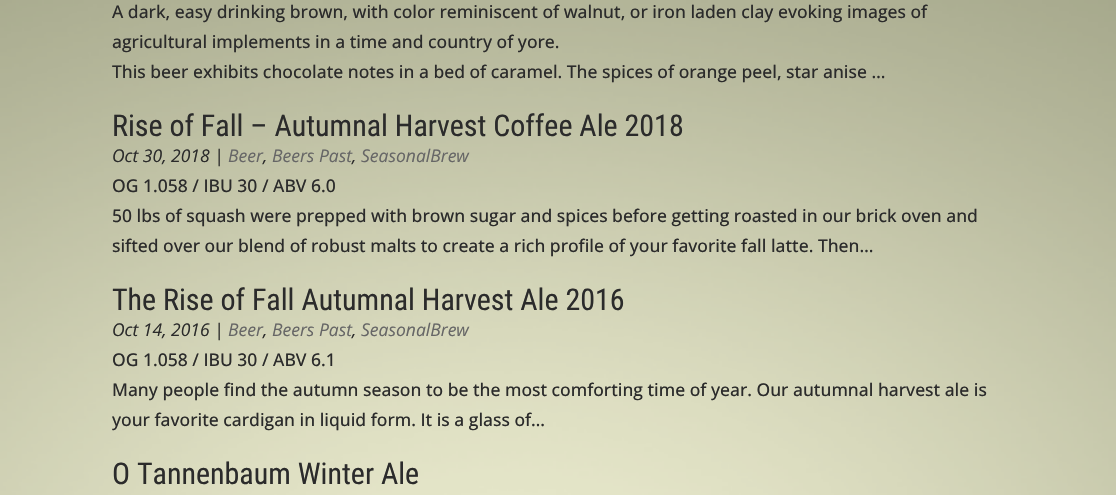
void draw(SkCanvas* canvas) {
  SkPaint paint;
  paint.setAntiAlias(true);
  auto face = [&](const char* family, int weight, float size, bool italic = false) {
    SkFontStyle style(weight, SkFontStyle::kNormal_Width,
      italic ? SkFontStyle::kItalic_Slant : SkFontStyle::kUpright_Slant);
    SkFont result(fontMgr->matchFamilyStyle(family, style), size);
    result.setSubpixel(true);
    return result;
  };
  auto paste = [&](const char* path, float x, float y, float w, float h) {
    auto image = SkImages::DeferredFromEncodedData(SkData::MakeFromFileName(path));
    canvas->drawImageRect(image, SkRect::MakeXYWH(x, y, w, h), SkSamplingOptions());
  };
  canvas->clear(0xffffffff);
  paste("img/1.png", 0, 0, 1116, 495);
  auto f0 = face("Open Sans", 500, 17.5f);
  paint.setColor(0xff2b2b2b);
  {
    const struct { const char* s; float x, y; } items[] = {
      {"A dark, easy drinking brown, with color reminiscent of walnut, or iron laden clay evoking images of", 112, 18},
      {"agricultural implements in a time and country of yore.", 112, 48},
      {"This beer exhibits chocolate notes in a bed of caramel. The spices of orange peel, star anise …", 112, 78},
    };
    for (auto [s, x, y] : items) {
      canvas->drawString(s, x, y, f0, paint);
    }
  }
  auto f1 = face("Roboto Condensed", 400, 30);
  canvas->drawString("Rise of Fall – Autumnal Harvest Coffee Ale 2018", 112, 136, f1, paint);
  auto f2 = face("Open Sans", 400, 17.5f, true);
  canvas->drawString("Oct 30, 2018 |", 112, 162, f2, paint);
  paint.setColor(0xff666666);
  {
    const struct { const char* s; float x, y; } items[] = {
      {"Beer", 228, 162},
      {"Beers Past", 272, 162},
      {"SeasonalBrew", 361, 162},
    };
    for (auto [s, x, y] : items) {
      canvas->drawString(s, x, y, f2, paint);
    }
  }
  paint.setColor(0xff2b2b2b);
  canvas->drawString(",", 263, 162, f2, paint);
  canvas->drawString(",", 352, 162, f2, paint);
  {
    const struct { const char* s; float x, y; } items[] = {
      {"OG 1.058 / IBU 30 / ABV 6.0", 112, 192},
      {"50 lbs of squash were prepped with brown sugar and spices before getting roasted in our brick oven and", 112, 222},
      {"sifted over our blend of robust malts to create a rich profile of your favorite fall latte. Then…", 112, 252},
    };
    for (auto [s, x, y] : items) {
      canvas->drawString(s, x, y, f0, paint);
    }
  }
  canvas->drawString("The Rise of Fall Autumnal Harvest Ale 2016", 112, 310, f1, paint);
  canvas->drawString("Oct 14, 2016 |", 112, 336, f2, paint);
  paint.setColor(0xff666666);
  {
    const struct { const char* s; float x, y; } items[] = {
      {"Beer", 228, 336},
      {"Beers Past", 272, 336},
      {"SeasonalBrew", 361, 336},
    };
    for (auto [s, x, y] : items) {
      canvas->drawString(s, x, y, f2, paint);
    }
  }
  paint.setColor(0xff2b2b2b);
  canvas->drawString(",", 263, 336, f2, paint);
  canvas->drawString(",", 352, 336, f2, paint);
  {
    const struct { const char* s; float x, y; } items[] = {
      {"OG 1.058 / IBU 30 / ABV 6.1", 112, 366},
      {"Many people find the autumn season to be the most comforting time of year. Our autumnal harvest ale is", 112, 396},
      {"your favorite cardigan in liquid form. It is a glass of…", 112, 426},
    };
    for (auto [s, x, y] : items) {
      canvas->drawString(s, x, y, f0, paint);
    }
  }
  canvas->drawString("O Tannenbaum Winter Ale", 112, 484, f1, paint);
}
